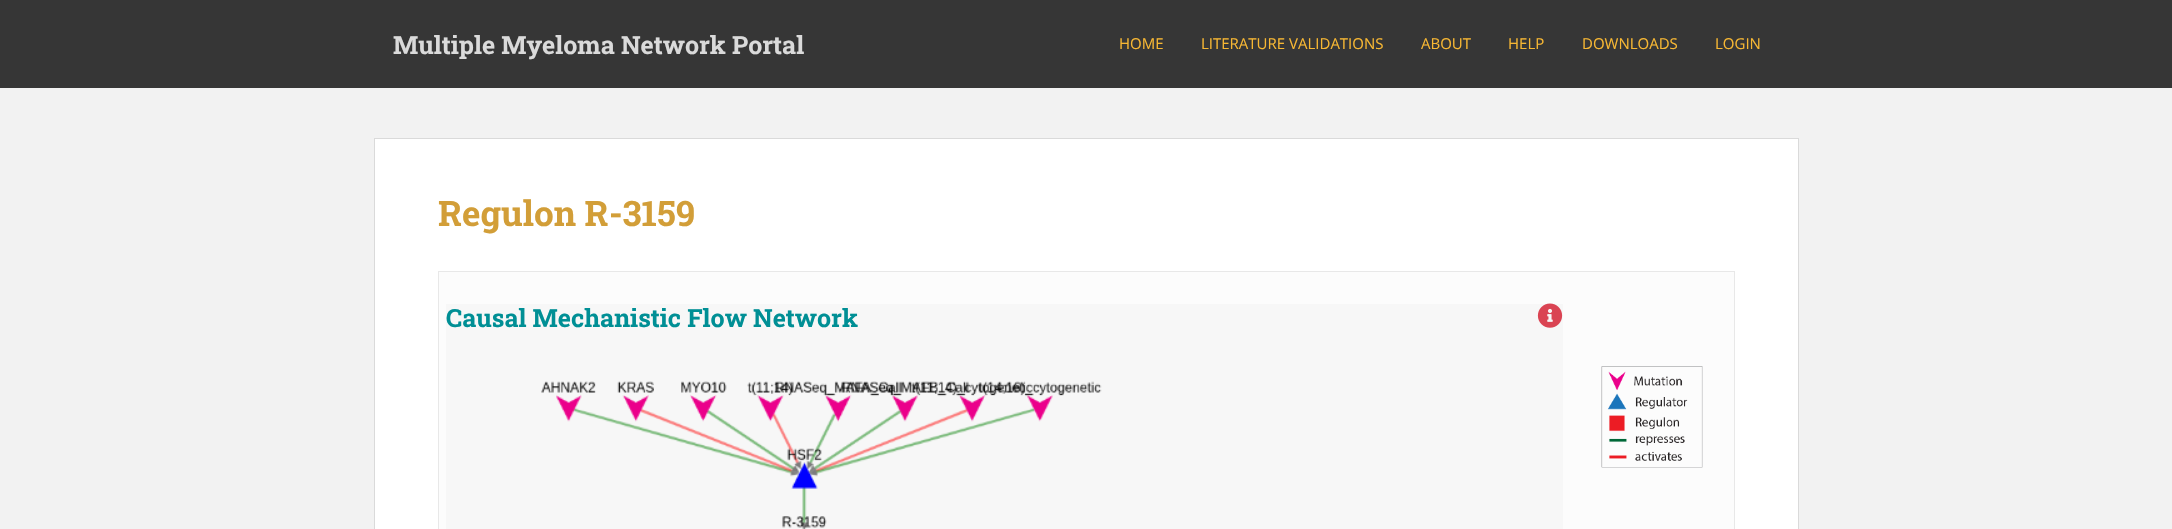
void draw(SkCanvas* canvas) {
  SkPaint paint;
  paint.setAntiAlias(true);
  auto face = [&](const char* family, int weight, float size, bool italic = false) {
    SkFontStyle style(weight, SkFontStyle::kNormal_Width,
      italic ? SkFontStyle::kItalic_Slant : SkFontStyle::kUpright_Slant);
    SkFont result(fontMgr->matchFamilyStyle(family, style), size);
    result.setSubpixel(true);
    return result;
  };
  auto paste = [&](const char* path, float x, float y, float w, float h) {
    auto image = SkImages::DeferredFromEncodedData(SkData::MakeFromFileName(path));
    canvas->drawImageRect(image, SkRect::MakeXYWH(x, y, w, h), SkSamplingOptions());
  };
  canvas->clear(0xfff2f2f2);
  paint.setColor(0xff363636);
  canvas->drawRect(SkRect::MakeXYWH(0, 0, 2172, 88), paint);
  paint.setColor(0xffffffff);
  canvas->drawRect(SkRect::MakeXYWH(374.5f, 138.5f, 1424, 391), paint);
  paint.setStroke(true);
  paint.setStrokeWidth(1);
  paint.setColor(0xffdadada);
  canvas->drawRect(SkRect::MakeXYWH(374.5f, 138.5f, 1424, 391), paint);
  paint.setStroke(false);
  paint.setColor(0xfffcfcfc);
  canvas->drawRect(SkRect::MakeXYWH(438.5f, 271.5f, 1296, 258), paint);
  paint.setStroke(true);
  paint.setColor(0xffe8e8e8);
  canvas->drawRect(SkRect::MakeXYWH(438.5f, 271.5f, 1296, 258), paint);
  paint.setStroke(false);
  paint.setColor(0xfff7f7f7);
  canvas->drawRect(SkRect::MakeXYWH(446, 304, 1117, 225), paint);
  paste("img/1.png", 541, 381, 561, 148);
  paste("img/2.png", 1537, 303, 26, 25);
  paste("img/3.png", 1601, 366, 102, 102);
  auto f0 = face("Roboto Slab", 700, 25);
  paint.setColor(0xffdadada);
  canvas->drawString("Multiple Myeloma Network Portal", 393, 54, f0, paint);
  auto f1 = face("Open Sans", 400, 15);
  paint.setColor(0xfff7b733);
  {
    const struct { const char* s; float x, y; } items[] = {
      {"HOME", 1119, 49},
      {"LITERATURE VALIDATIONS", 1201, 49},
      {"ABOUT", 1421, 49},
      {"HELP", 1508, 49},
      {"DOWNLOADS", 1582, 49},
      {"LOGIN", 1715, 49},
    };
    for (auto [s, x, y] : items) {
      canvas->drawString(s, x, y, f1, paint);
    }
  }
  auto f2 = face("Roboto Slab", 700, 35);
  paint.setColor(0xffd29e38);
  canvas->drawString("Regulon R-3159", 438, 226, f2, paint);
  paint.setColor(0xff008f95);
  canvas->drawString("Causal Mechanistic Flow Network", 446, 327, f0, paint);
}
